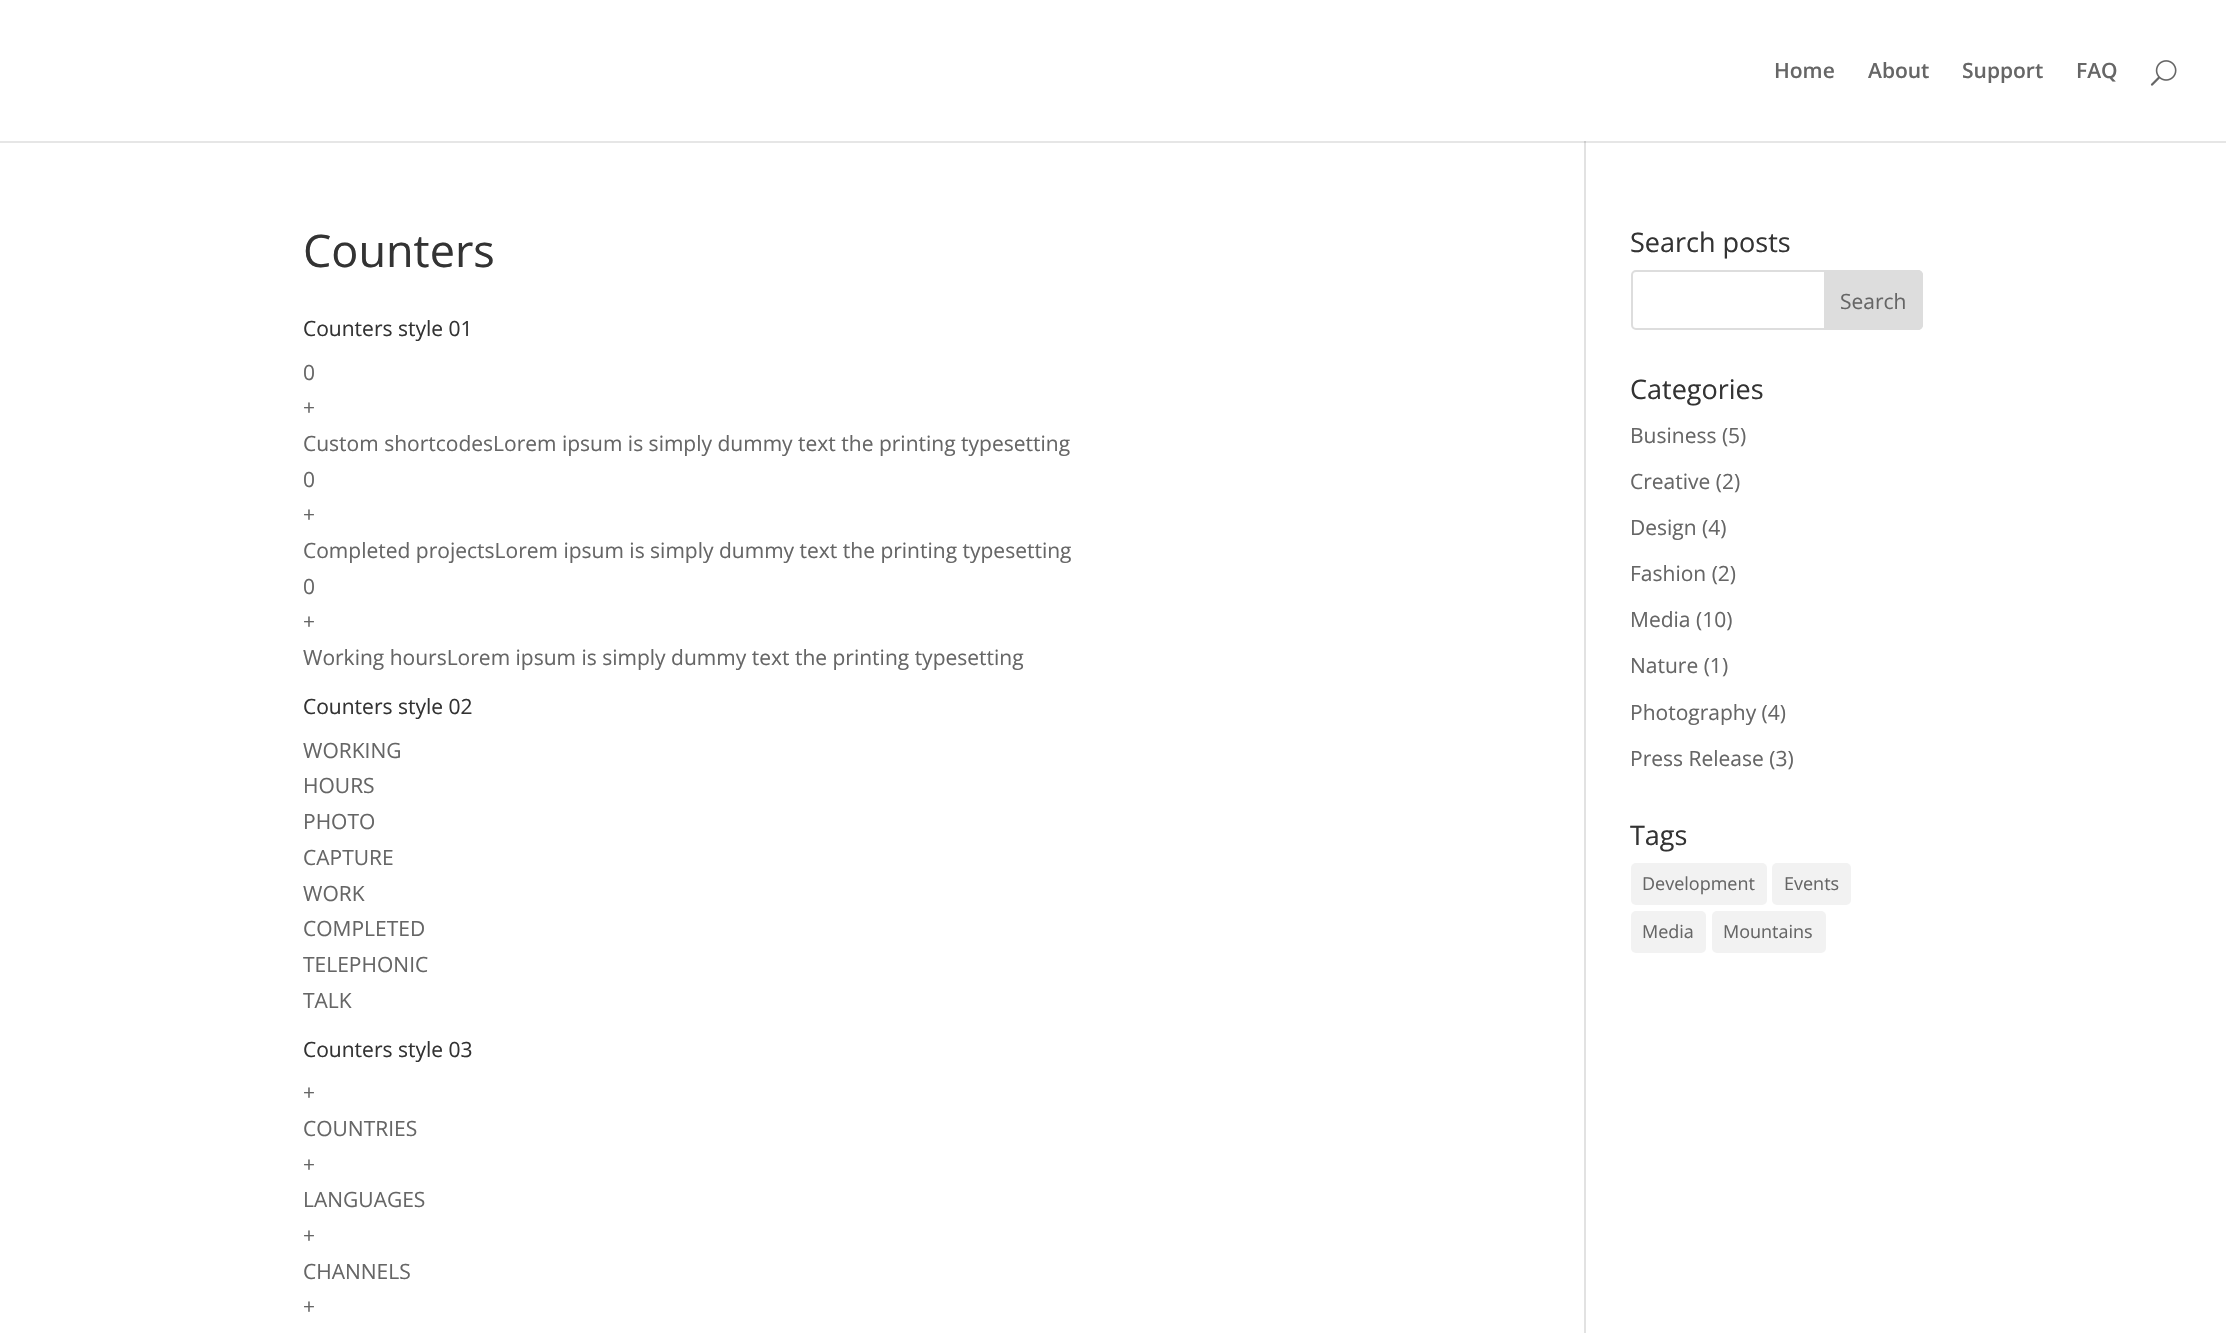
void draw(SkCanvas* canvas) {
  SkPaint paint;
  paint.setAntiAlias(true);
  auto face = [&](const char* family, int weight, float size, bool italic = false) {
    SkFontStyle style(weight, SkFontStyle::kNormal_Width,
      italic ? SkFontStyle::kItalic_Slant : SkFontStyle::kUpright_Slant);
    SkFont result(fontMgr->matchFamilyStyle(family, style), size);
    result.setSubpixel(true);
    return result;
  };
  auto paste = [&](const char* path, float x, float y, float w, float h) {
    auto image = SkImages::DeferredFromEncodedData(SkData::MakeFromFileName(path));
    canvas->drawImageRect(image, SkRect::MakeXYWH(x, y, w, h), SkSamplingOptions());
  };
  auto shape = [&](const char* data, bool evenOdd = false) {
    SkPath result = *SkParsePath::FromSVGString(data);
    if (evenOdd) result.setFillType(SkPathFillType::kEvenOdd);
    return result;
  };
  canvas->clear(0xffffffff);
  paint.setColor(0xffe6e6e6);
  canvas->drawRect(SkRect::MakeXYWH(0, 141, 2226, 2), paint);
  paste("img/1.png", 2150, 60, 27, 26);
  paint.setColor(0xffe2e2e2);
  canvas->drawRect(SkRect::MakeXYWH(1584, 141, 2, 1192), paint);
  paint.setColor(0xffcbcbcb);
  canvas->drawRect(SkRect::MakeXYWH(1584, 141, 2, 2), paint);
  paint.setStroke(true);
  paint.setStrokeWidth(2);
  paint.setColor(0xffdddddd);
  canvas->drawRoundRect(SkRect::MakeXYWH(1632, 271, 290, 58), 4, 4, paint);
  paint.setStroke(false);
  canvas->drawPath(shape("M1825 271H1918C1920 271 1922 273 1922 275V325C1922 327 1920 329 1918 329H1825Z"), paint);
  paint.setStroke(true);
  canvas->drawPath(shape("M1825 271H1918C1920 271 1922 273 1922 275V325C1922 327 1920 329 1918 329H1825Z"), paint);
  paint.setStroke(false);
  paint.setColor(0xfff2f2f2);
  canvas->drawRoundRect(SkRect::MakeXYWH(1631, 863, 136, 42), 5, 5, paint);
  canvas->drawRoundRect(SkRect::MakeXYWH(1772, 863, 79, 42), 5, 5, paint);
  canvas->drawRoundRect(SkRect::MakeXYWH(1631, 911, 75, 42), 5, 5, paint);
  canvas->drawRoundRect(SkRect::MakeXYWH(1712, 911, 114, 42), 5, 5, paint);
  auto f0 = face("Open Sans", 600, 21);
  paint.setColor(0xff666666);
  {
    const struct { const char* s; float x, y; } items[] = {
      {"Home", 1774, 78},
      {"About", 1868, 78},
      {"Support", 1962, 78},
      {"FAQ", 2076, 78},
    };
    for (auto [s, x, y] : items) {
      canvas->drawString(s, x, y, f0, paint);
    }
  }
  auto f1 = face("Open Sans", 400, 45);
  paint.setColor(0xff333333);
  canvas->drawString("Counters", 303, 267, f1, paint);
  auto f2 = face("Open Sans", 400, 21);
  canvas->drawString("Counters style 01", 303, 336, f2, paint);
  paint.setColor(0xff666666);
  {
    const struct { const char* s; float x, y; } items[] = {
      {"0", 303, 380},
      {"+", 303, 415},
      {"Custom shortcodesLorem ipsum is simply dummy text the printing typesetting", 303, 451},
      {"0", 303, 487},
      {"+", 303, 522},
      {"Completed projectsLorem ipsum is simply dummy text the printing typesetting", 303, 558},
      {"0", 303, 594},
      {"+", 303, 629},
      {"Working hoursLorem ipsum is simply dummy text the printing typesetting", 303, 665},
    };
    for (auto [s, x, y] : items) {
      canvas->drawString(s, x, y, f2, paint);
    }
  }
  paint.setColor(0xff333333);
  canvas->drawString("Counters style 02", 303, 714, f2, paint);
  paint.setColor(0xff666666);
  {
    const struct { const char* s; float x, y; } items[] = {
      {"WORKING", 303, 758},
      {"HOURS", 303, 793},
      {"PHOTO", 303, 829},
      {"CAPTURE", 303, 865},
      {"WORK", 303, 901},
      {"COMPLETED", 303, 936},
      {"TELEPHONIC", 303, 972},
      {"TALK", 303, 1008},
    };
    for (auto [s, x, y] : items) {
      canvas->drawString(s, x, y, f2, paint);
    }
  }
  paint.setColor(0xff333333);
  canvas->drawString("Counters style 03", 303, 1057, f2, paint);
  paint.setColor(0xff666666);
  {
    const struct { const char* s; float x, y; } items[] = {
      {"+", 303, 1100},
      {"COUNTRIES", 303, 1136},
      {"+", 303, 1172},
      {"LANGUAGES", 303, 1207},
      {"+", 303, 1243},
      {"CHANNELS", 303, 1279},
      {"+", 303, 1314},
    };
    for (auto [s, x, y] : items) {
      canvas->drawString(s, x, y, f2, paint);
    }
  }
  auto f3 = face("Open Sans", 400, 27);
  paint.setColor(0xff333333);
  canvas->drawString("Search posts", 1630, 252, f3, paint);
  paint.setColor(0xff666666);
  canvas->drawString("Search", 1840, 309, f2, paint);
  paint.setColor(0xff333333);
  canvas->drawString("Categories", 1630, 399, f3, paint);
  paint.setColor(0xff666666);
  {
    const struct { const char* s; float x, y; } items[] = {
      {"Business (5)", 1630, 443},
      {"Creative (2)", 1630, 489},
      {"Design (4)", 1630, 535},
      {"Fashion (2)", 1630, 581},
      {"Media (10)", 1630, 627},
      {"Nature (1)", 1630, 673},
      {"Photography (4)", 1630, 720},
      {"Press Release (3)", 1630, 766},
    };
    for (auto [s, x, y] : items) {
      canvas->drawString(s, x, y, f2, paint);
    }
  }
  paint.setColor(0xff333333);
  canvas->drawString("Tags", 1630, 845, f3, paint);
  auto f4 = face("Open Sans", 400, 18);
  paint.setColor(0xff666666);
  {
    const struct { const char* s; float x, y; } items[] = {
      {"Development", 1642, 890},
      {"Events", 1784, 890},
      {"Media", 1642, 938},
      {"Mountains", 1723, 938},
    };
    for (auto [s, x, y] : items) {
      canvas->drawString(s, x, y, f4, paint);
    }
  }
}
